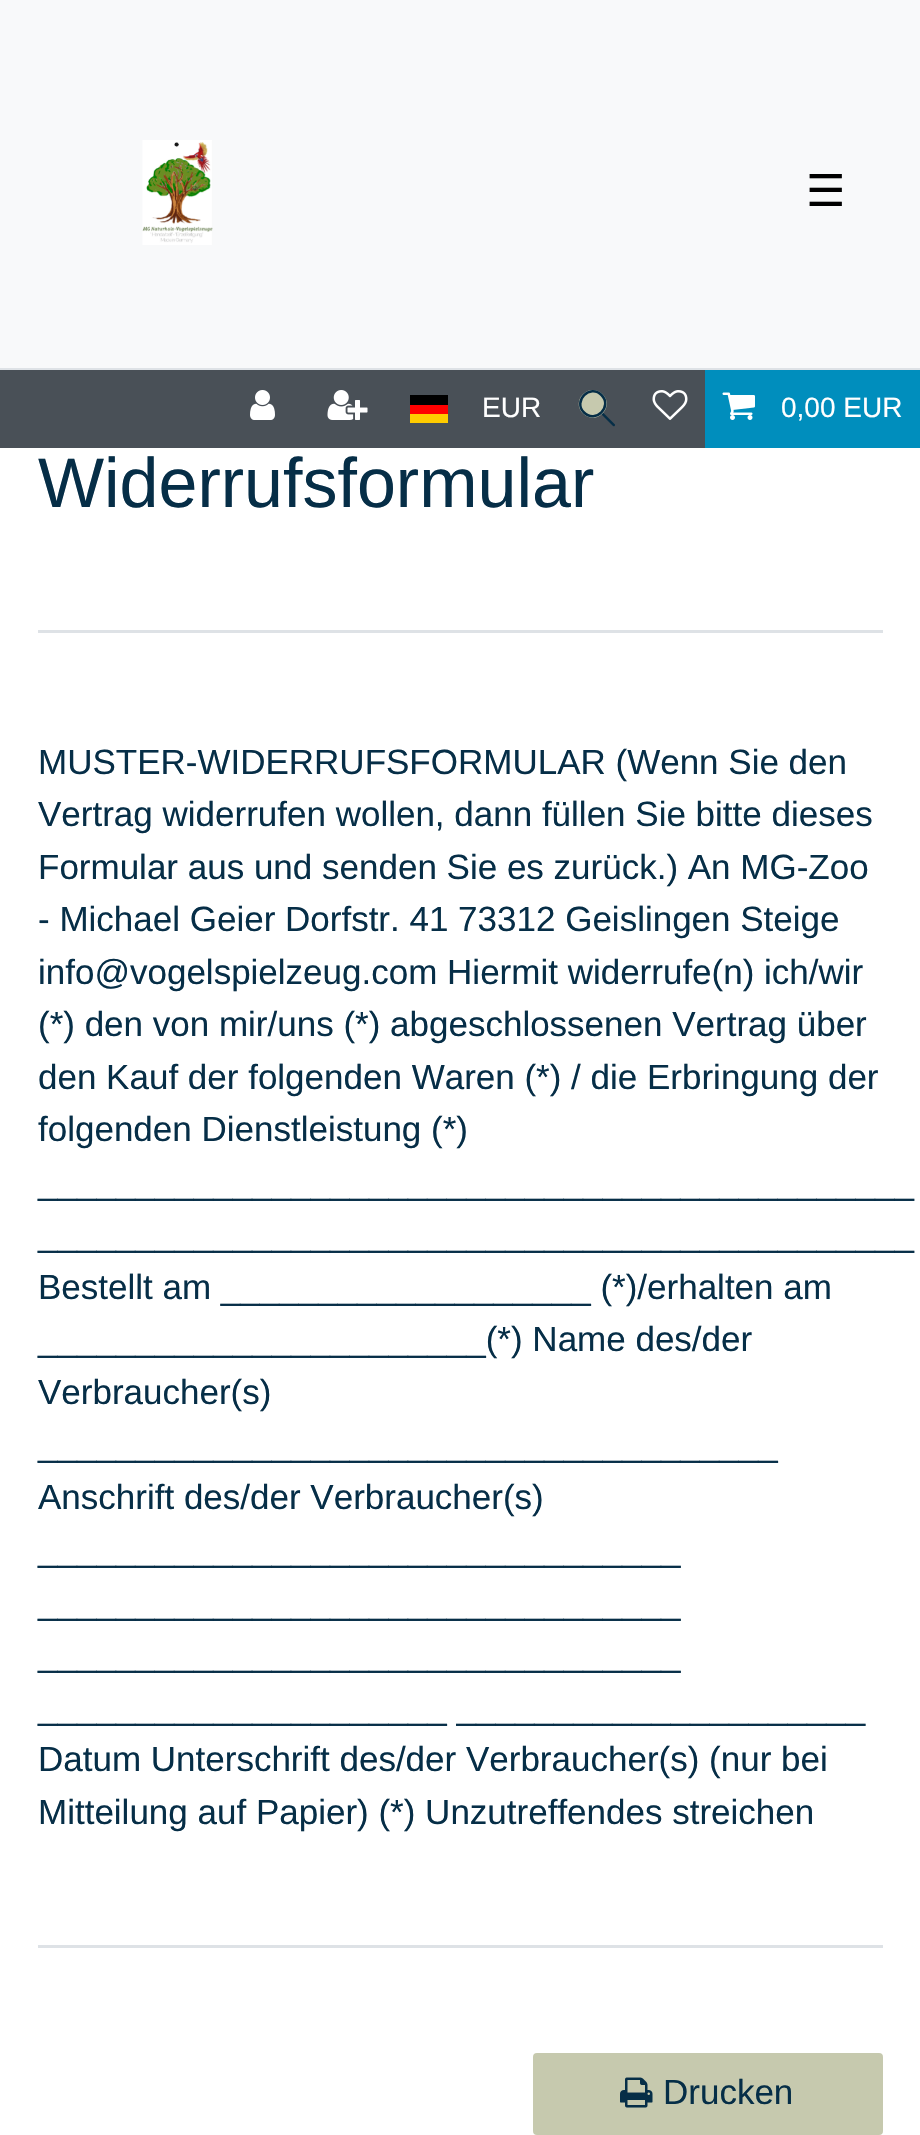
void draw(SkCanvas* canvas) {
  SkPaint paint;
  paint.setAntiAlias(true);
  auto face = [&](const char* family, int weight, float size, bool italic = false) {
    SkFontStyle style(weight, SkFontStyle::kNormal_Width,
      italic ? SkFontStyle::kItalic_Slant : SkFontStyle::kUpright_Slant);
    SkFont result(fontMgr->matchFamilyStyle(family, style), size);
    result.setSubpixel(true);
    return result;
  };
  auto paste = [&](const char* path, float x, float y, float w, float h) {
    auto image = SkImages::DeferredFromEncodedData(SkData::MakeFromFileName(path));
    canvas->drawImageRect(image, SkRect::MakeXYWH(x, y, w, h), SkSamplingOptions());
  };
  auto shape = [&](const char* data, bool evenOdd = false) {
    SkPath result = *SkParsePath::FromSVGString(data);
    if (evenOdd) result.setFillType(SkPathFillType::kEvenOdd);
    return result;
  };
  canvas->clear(0xffffffff);
  paint.setColor(0xfff8f9fa);
  canvas->drawRect(SkRect::MakeXYWH(0, 0, 920, 368), paint);
  paint.setColor(0xffdee2e6);
  canvas->drawRect(SkRect::MakeXYWH(0, 368, 920, 2), paint);
  paste("img/1.png", 142, 140, 71, 105);
  paint.setColor(0xff495057);
  canvas->drawRect(SkRect::MakeXYWH(0, 370, 705, 78), paint);
  paste("img/2.png", 250, 390, 25, 30);
  paste("img/3.png", 327, 390, 41, 30);
  {
    const struct { float x, y, w, h; SkColor color; } items[] = {
      {410, 414, 38, 9, 0xffffcc00},
      {410, 395, 38, 10, 0xff000000},
      {410, 405, 38, 9, 0xffff0000},
    };
    for (auto [x, y, w, h, color] : items) {
      paint.setColor(color);
      canvas->drawRect(SkRect::MakeXYWH(x, y, w, h), paint);
    }
  }
  paint.setColor(0xff062e47);
  canvas->drawPath(shape("M613 426L588 401V400C588.5 399 589 399 589.5 399L615 424.5C615.5 425.5 614 427 613 426Z"), paint);
  paint.setColor(0xffc6c9ae);
  canvas->drawPath(shape("M583 413.5C570 400.5 589.5 381.5 602.5 394C615.5 407 596 426.5 583 413.5Z"), paint);
  paint.setStroke(true);
  paint.setStrokeWidth(2.5f);
  paint.setColor(0xff062e47);
  canvas->drawPath(shape("M584 412.5C572.5 401 590 383.5 601.5 395C613 406.5 595.5 424 584 412.5Z"), paint);
  paste("img/4.png", 652, 390, 36, 30);
  paint.setStroke(false);
  paint.setColor(0xff008ebd);
  canvas->drawRect(SkRect::MakeXYWH(705, 370, 215, 78), paint);
  paste("img/5.png", 722, 392, 33, 28);
  paint.setColor(0xffdee2e6);
  canvas->drawRect(SkRect::MakeXYWH(38, 630, 845, 3), paint);
  canvas->drawRect(SkRect::MakeXYWH(38, 1945, 845, 3), paint);
  paint.setColor(0xffc6c9ae);
  canvas->drawRoundRect(SkRect::MakeXYWH(534.5f, 2054.5f, 347, 79), 2.5f, 2.5f, paint);
  paint.setStroke(true);
  paint.setStrokeWidth(3);
  canvas->drawRoundRect(SkRect::MakeXYWH(534.5f, 2054.5f, 347, 79), 2.5f, 2.5f, paint);
  paste("img/6.png", 620, 2077, 33, 31);
  auto f0 = face("DejaVu Sans", 400, 44);
  paint.setStroke(false);
  paint.setColor(0xff000000);
  canvas->drawString("☰", 806, 206, f0, paint);
  auto f1 = face("Liberation Sans", 400, 28);
  paint.setColor(0xffffffff);
  canvas->drawString("EUR", 482, 417, f1, paint);
  canvas->drawString("0,00 EUR", 781, 417, f1, paint);
  auto f2 = face("Liberation Sans", 400, 70);
  paint.setColor(0xff062e47);
  canvas->drawString("Widerrufsformular", 38, 507, f2, paint);
  auto f3 = face("Liberation Sans", 400, 35);
  {
    const struct { const char* s; float x, y; } items[] = {
      {"MUSTER-WIDERRUFSFORMULAR (Wenn Sie den", 38, 774},
      {"Vertrag widerrufen wollen, dann füllen Sie bitte dieses", 38, 826},
      {"Formular aus und senden Sie es zurück.) An MG-Zoo", 38, 879},
      {"- Michael Geier Dorfstr. 41 73312 Geislingen Steige", 38, 931},
      {"info@vogelspielzeug.com Hiermit widerrufe(n) ich/wir", 38, 984},
      {"(*) den von mir/uns (*) abgeschlossenen Vertrag über", 38, 1036},
      {"den Kauf der folgenden Waren (*) / die Erbringung der", 38, 1089},
      {"folgenden Dienstleistung (*)", 38, 1141},
      {"_____________________________________________", 38, 1194},
      {"_____________________________________________", 38, 1246},
      {"Bestellt am ___________________ (*)/erhalten am", 38, 1299},
      {"_______________________(*) Name des/der", 38, 1351},
      {"Verbraucher(s)", 38, 1404},
      {"______________________________________", 38, 1456},
      {"Anschrift des/der Verbraucher(s)", 38, 1509},
      {"_________________________________", 38, 1561},
      {"_________________________________", 38, 1614},
      {"_________________________________", 38, 1666},
      {"_____________________ _____________________", 38, 1719},
      {"Datum Unterschrift des/der Verbraucher(s) (nur bei", 38, 1771},
      {"Mitteilung auf Papier) (*) Unzutreffendes streichen", 38, 1824},
      {"Drucken", 663, 2104},
    };
    for (auto [s, x, y] : items) {
      canvas->drawString(s, x, y, f3, paint);
    }
  }
}
